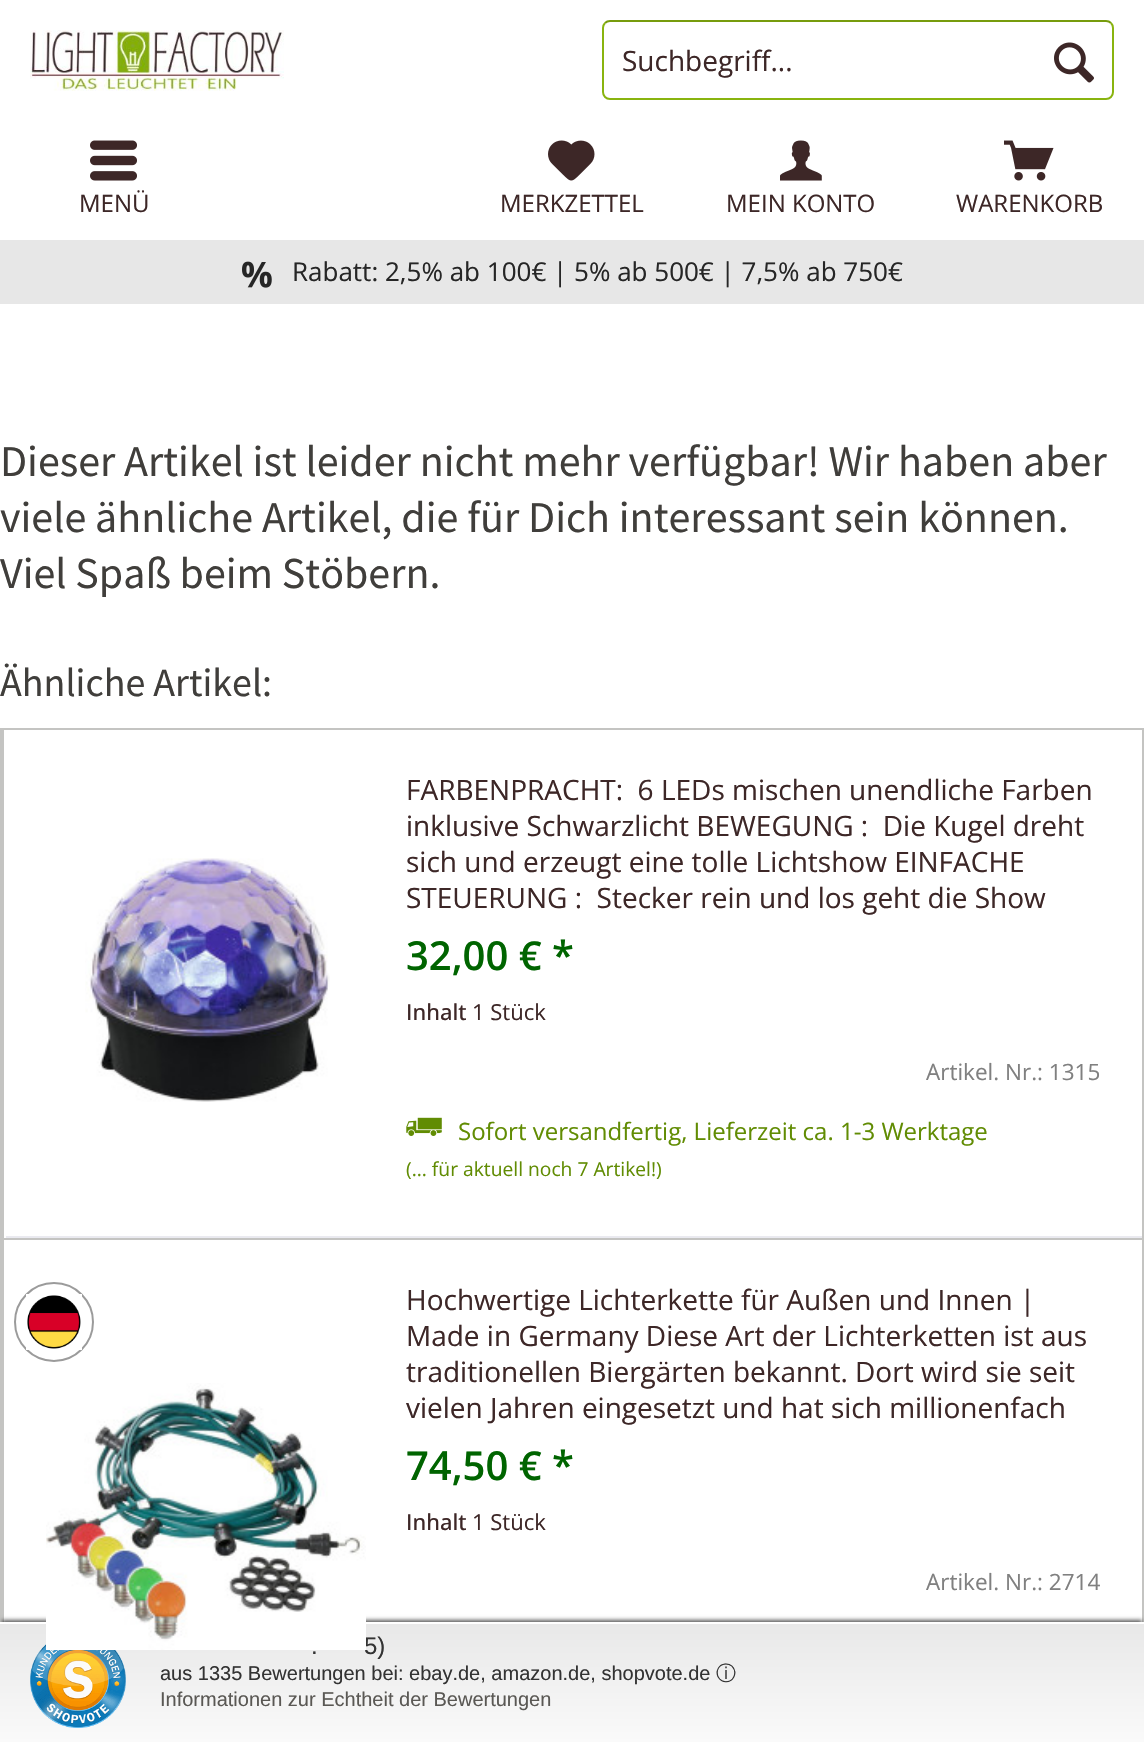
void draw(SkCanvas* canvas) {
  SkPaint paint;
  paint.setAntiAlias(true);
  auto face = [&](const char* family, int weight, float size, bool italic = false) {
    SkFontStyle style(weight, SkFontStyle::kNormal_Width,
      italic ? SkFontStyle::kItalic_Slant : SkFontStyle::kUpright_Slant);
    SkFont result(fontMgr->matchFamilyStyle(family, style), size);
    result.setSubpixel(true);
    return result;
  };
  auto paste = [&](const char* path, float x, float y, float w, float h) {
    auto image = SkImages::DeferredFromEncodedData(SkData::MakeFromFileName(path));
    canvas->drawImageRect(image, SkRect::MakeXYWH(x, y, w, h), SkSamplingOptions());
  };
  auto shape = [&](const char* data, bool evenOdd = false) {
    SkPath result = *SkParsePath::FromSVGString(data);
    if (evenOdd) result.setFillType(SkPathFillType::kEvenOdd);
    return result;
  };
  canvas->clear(0xffffffff);
  paint.setStroke(true);
  paint.setStrokeWidth(2);
  paint.setColor(0xff779c0d);
  canvas->drawPath(shape("M605 23C606.5 21.5 608 21 610 21H1106C1108 21 1109.5 21.5 1111 23"), paint);
  paint.setColor(0xff89b40f);
  canvas->drawPath(shape("M1111 23C1112.5 24.5 1113 26 1113 28V92C1113 94 1112.5 95.5 1111 97C1109.5 98.5 1108 99 1106 99H610C608 99 606.5 98.5 605 97C603.5 95.5 603 94 603 92V28C603 26 603.5 24.5 605 23"), paint);
  paste("img/1.png", 1054, 42, 40, 41);
  paste("img/2.png", 30, 30, 254, 61);
  paste("img/3.png", 90, 140, 47, 41);
  paste("img/4.png", 548, 140, 47, 41);
  paste("img/5.png", 780, 140, 42, 41);
  paste("img/6.png", 1004, 140, 50, 41);
  paint.setStroke(false);
  paint.setColor(0xffe7e7e7);
  canvas->drawRect(SkRect::MakeXYWH(0, 240, 1144, 64), paint);
  paste("img/7.png", 242, 261, 30, 27);
  paint.setStroke(true);
  paint.setColor(0xffc4c4c2);
  canvas->drawRect(SkRect::MakeXYWH(1, 729, 1142, 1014), paint);
  paint.setStroke(false);
  canvas->drawRect(SkRect::MakeXYWH(2, 1238, 1140, 2), paint);
  canvas->drawRect(SkRect::MakeXYWH(2, 730, 2, 510), paint);
  paint.setStroke(true);
  canvas->drawRect(SkRect::MakeXYWH(1, 729, 1142, 512), paint);
  paint.setStroke(false);
  paint.setColor(0xffeaeaf0);
  canvas->drawRect(SkRect::MakeXYWH(4, 1236, 1138, 2), paint);
  paint.setColor(0xffffffff);
  canvas->drawRect(SkRect::MakeXYWH(4, 1236, 2, 2), paint);
  paste("img/8.png", 85, 858, 245, 244);
  paste("img/9.png", 406, 1117, 36, 19);
  paint.setColor(0xffc4c4c2);
  canvas->drawRect(SkRect::MakeXYWH(2, 1240, 2, 382), paint);
  paint.setColor(0xffffffff);
  canvas->drawRect(SkRect::MakeXYWH(4, 1240, 1138, 2), paint);
  paint.setStroke(true);
  paint.setColor(0xff9b9b9b);
  canvas->drawCircle(54, 1322, 39, paint);
  paint.setStroke(false);
  paint.setColor(0xffffffff);
  canvas->drawRect(SkRect::MakeXYWH(26, 1294, 56, 56), paint);
  paste("img/10.png", 27, 1295, 54, 54);
  paint.setColor(0xa6000000);
  paint.setMaskFilter(SkMaskFilter::MakeBlur(kNormal_SkBlurStyle, 2));
  canvas->drawRect(SkRect::MakeXYWH(2, 1620, 1140, 116), paint);
  paint.setMaskFilter(nullptr);
  {
    const SkColor colors[] = {0xfff0f0f0, 0xffe8e8e8, 0xfffafafa};
    const float stops[] = {0, 0, 1};
    const SkPoint ends[] = {{572, 1624}, {572, 1742}};
    paint.setShader(SkGradientShader::MakeLinear(ends, colors, stops, 3, SkTileMode::kClamp));
    paint.setAlpha(255);
  }
  canvas->drawRect(SkRect::MakeXYWH(0, 1624, 1144, 118), paint);
  paint.setShader(nullptr);
  paint.setColor(0xffffffff);
  canvas->drawRect(SkRect::MakeXYWH(0, 1622, 1144, 2), paint);
  paste("img/12.png", 30, 1644, 96, 84);
  auto f0 = face("Open Sans", 400, 28);
  paint.setColor(0xff3d2727);
  canvas->drawString("Suchbegriff...", 622, 71, f0, paint);
  auto f1 = face("Open Sans", 400, 24);
  {
    const struct { const char* s; float x, y; } items[] = {
      {"MENÜ", 79, 212},
      {"MERKZETTEL", 500, 212},
      {"MEIN KONTO", 726, 212},
      {"WARENKORB", 956, 212},
    };
    for (auto [s, x, y] : items) {
      canvas->drawString(s, x, y, f1, paint);
    }
  }
  auto f2 = face("Open Sans", 400, 26);
  paint.setColor(0xff262626);
  canvas->drawString("Rabatt: 2,5% ab 100€ | 5% ab 500€ | 7,5% ab 750€", 292, 281, f2, paint);
  auto f3 = face("Source Sans Pro", 400, 44);
  paint.setColor(0xff403e3b);
  {
    const struct { const char* s; float x, y; } items[] = {
      {"Dieser Artikel ist leider nicht mehr verfügbar! Wir haben aber", 0, 476},
      {"viele ähnliche Artikel, die für Dich interessant sein können.", 0, 532},
      {"Viel Spaß beim Stöbern.", 0, 588},
    };
    for (auto [s, x, y] : items) {
      canvas->drawString(s, x, y, f3, paint);
    }
  }
  auto f4 = face("Source Sans Pro", 400, 40);
  canvas->drawString("Ähnliche Artikel:", 0, 696, f4, paint);
  paint.setColor(0xff3d2727);
  {
    const struct { const char* s; float x, y; } items[] = {
      {"FARBENPRACHT:  6 LEDs mischen unendliche Farben", 406, 800},
      {"inklusive Schwarzlicht BEWEGUNG :  Die Kugel dreht", 406, 836},
      {"sich und erzeugt eine tolle Lichtshow EINFACHE", 406, 872},
      {"STEUERUNG :  Stecker rein und los geht die Show", 406, 908},
    };
    for (auto [s, x, y] : items) {
      canvas->drawString(s, x, y, f0, paint);
    }
  }
  auto f5 = face("Open Sans", 600, 40);
  paint.setColor(0xff006400);
  canvas->drawString("32,00 € *", 406, 970, f5, paint);
  auto f6 = face("Open Sans", 500, 22);
  paint.setColor(0xff3d2727);
  canvas->drawString("Inhalt", 406, 1020, f6, paint);
  auto f7 = face("Open Sans", 400, 22);
  canvas->drawString("1 Stück", 472, 1020, f7, paint);
  auto f8 = face("Open Sans", 400, 22.5f);
  paint.setColor(0xff808080);
  canvas->drawString("Artikel. Nr.: 1315", 926, 1080, f8, paint);
  paint.setColor(0xff618c03);
  canvas->drawString("Sofort versandfertig, Lieferzeit ca. 1-3 Werktage", 458, 1140, f1, paint);
  auto f9 = face("Open Sans", 400, 19.25f);
  canvas->drawString("(... für aktuell noch 7 Artikel!)", 406, 1176, f9, paint);
  paint.setColor(0xff3d2727);
  {
    const struct { const char* s; float x, y; } items[] = {
      {"Hochwertige Lichterkette für Außen und Innen |", 406, 1310},
      {"Made in Germany Diese Art der Lichterketten ist aus", 406, 1346},
      {"traditionellen Biergärten bekannt. Dort wird sie seit", 406, 1382},
      {"vielen Jahren eingesetzt und hat sich millionenfach", 406, 1418},
    };
    for (auto [s, x, y] : items) {
      canvas->drawString(s, x, y, f0, paint);
    }
  }
  paint.setColor(0xff006400);
  canvas->drawString("74,50 € *", 406, 1480, f5, paint);
  paint.setColor(0xff3d2727);
  canvas->drawString("Inhalt", 406, 1530, f6, paint);
  canvas->drawString("1 Stück", 472, 1530, f7, paint);
  paint.setColor(0xff808080);
  canvas->drawString("Artikel. Nr.: 2714", 926, 1590, f8, paint);
  auto f10 = face("Liberation Sans", 400, 24);
  paint.setColor(0xff333333);
  canvas->drawString(".", 311, 1654, f10, paint);
  canvas->drawString("5)", 364, 1654, f10, paint);
  paste("img/11.png", 46, 1383, 320, 267);
  auto f11 = face("Liberation Sans", 400, 20);
  canvas->drawString("aus 1335 Bewertungen bei: ebay.de, amazon.de, shopvote.de", 160, 1680, f11, paint);
  auto f12 = face("WenQuanYi Zen Hei", 500, 20);
  canvas->drawString("ⓘ", 716, 1680, f12, paint);
  paint.setColor(0xff5a5854);
  canvas->drawString("Informationen zur Echtheit der Bewertungen", 160, 1706, f11, paint);
}
